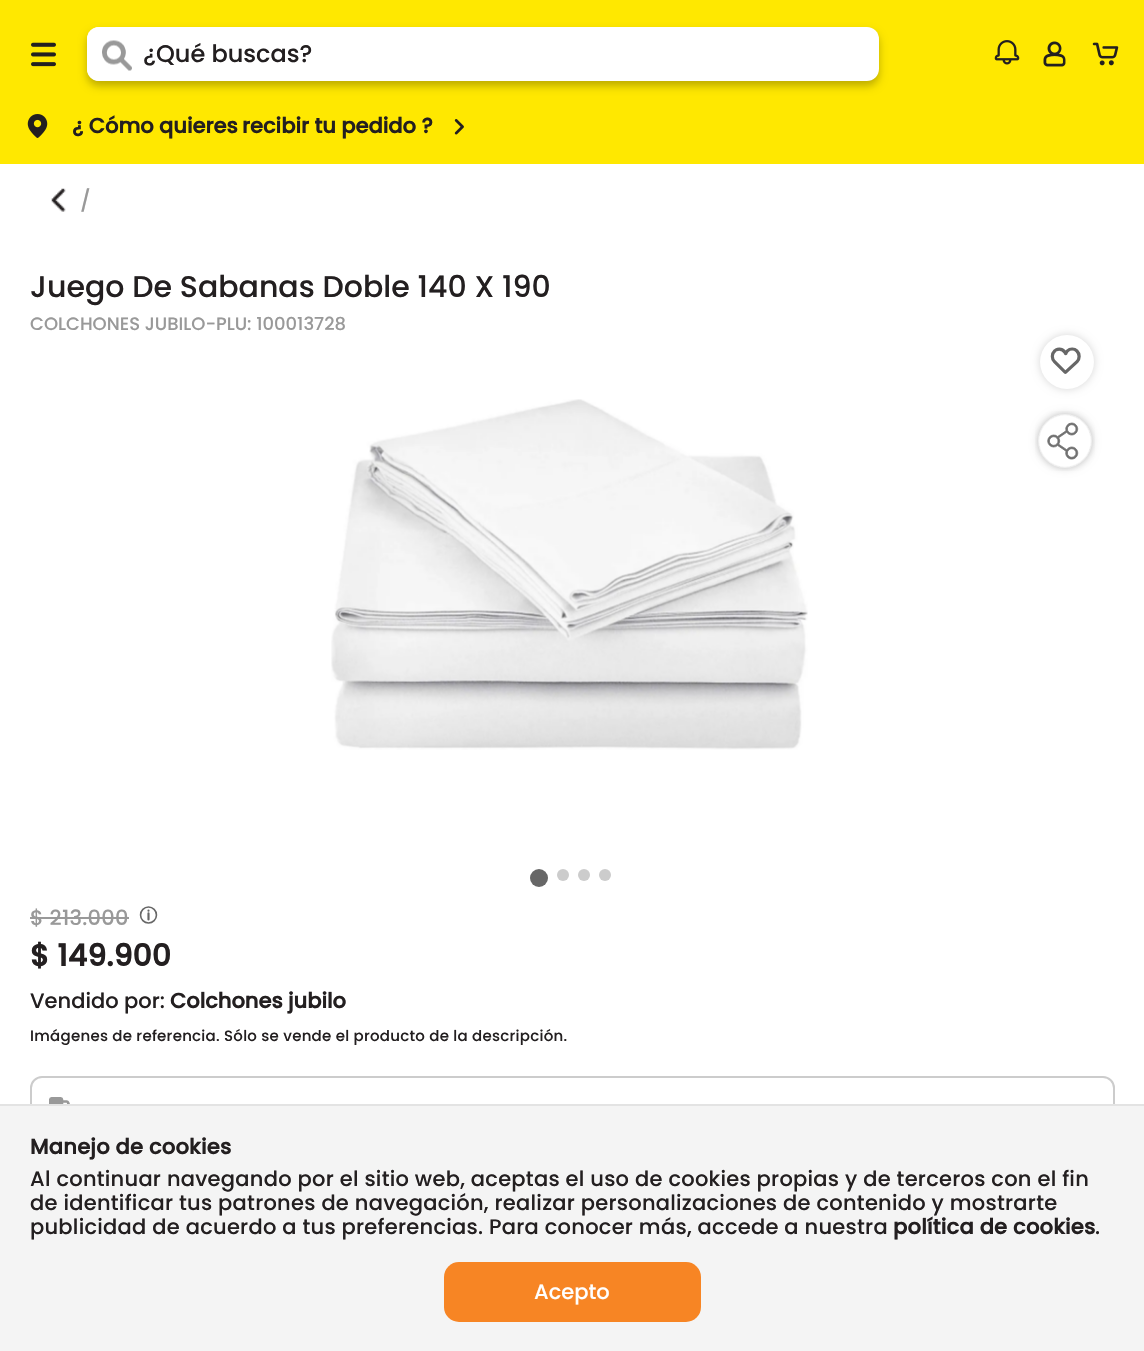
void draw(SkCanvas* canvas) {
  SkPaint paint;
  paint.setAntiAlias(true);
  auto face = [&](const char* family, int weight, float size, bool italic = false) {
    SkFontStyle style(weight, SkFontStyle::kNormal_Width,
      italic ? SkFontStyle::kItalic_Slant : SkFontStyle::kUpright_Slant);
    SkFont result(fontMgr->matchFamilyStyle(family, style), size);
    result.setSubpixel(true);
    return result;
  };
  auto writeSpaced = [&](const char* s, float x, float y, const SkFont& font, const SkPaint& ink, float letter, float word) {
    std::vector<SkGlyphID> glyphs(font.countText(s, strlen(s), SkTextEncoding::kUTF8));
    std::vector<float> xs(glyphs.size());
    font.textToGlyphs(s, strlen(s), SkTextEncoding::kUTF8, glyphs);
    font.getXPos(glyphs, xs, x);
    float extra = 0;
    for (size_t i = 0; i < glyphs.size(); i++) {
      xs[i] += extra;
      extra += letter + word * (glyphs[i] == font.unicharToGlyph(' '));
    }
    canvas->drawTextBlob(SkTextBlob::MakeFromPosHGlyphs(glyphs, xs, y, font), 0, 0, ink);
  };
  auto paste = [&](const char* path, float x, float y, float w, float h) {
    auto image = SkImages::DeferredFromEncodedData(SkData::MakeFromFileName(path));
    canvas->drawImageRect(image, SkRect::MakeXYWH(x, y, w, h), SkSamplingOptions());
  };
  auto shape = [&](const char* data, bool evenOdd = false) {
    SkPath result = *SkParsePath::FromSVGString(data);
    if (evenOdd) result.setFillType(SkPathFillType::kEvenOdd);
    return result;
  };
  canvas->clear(0xffffffff);
  paint.setColor(0xffffe800);
  canvas->drawRect(SkRect::MakeXYWH(0, 0, 1144, 164), paint);
  paste("img/1.png", 31, 42, 25, 25);
  paint.setColor(0xffffffff);
  canvas->drawRoundRect(SkRect::MakeXYWH(87, 27, 792, 54), 12, 12, paint);
  canvas->save();
  canvas->clipPath(shape("M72 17H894V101H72ZM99 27H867C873.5 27 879 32.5 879 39V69C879 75.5 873.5 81 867 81H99C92.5 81 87 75.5 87 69V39C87 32.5 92.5 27 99 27Z", true), true);
  paint.setColor(0x42000000);
  paint.setMaskFilter(SkMaskFilter::MakeBlur(kNormal_SkBlurStyle, 4.5f));
  canvas->drawRoundRect(SkRect::MakeXYWH(87, 32, 792, 54), 12, 12, paint);
  paint.setMaskFilter(nullptr);
  canvas->restore();
  paint.setColor(0xffffffff);
  canvas->drawPath(shape("M99 27H143V81H99C92.5 81 87 75.5 87 69V39C87 32.5 92.5 27 99 27Z"), paint);
  paste("img/2.png", 102, 40, 30, 31);
  paste("img/3.png", 994, 40, 26, 25);
  paste("img/4.png", 1043, 41, 23, 26);
  paste("img/5.png", 1092, 42, 27, 24);
  paste("img/6.png", 27, 114, 21, 24);
  paste("img/7.png", 454, 119, 10, 16);
  paste("img/8.png", 51, 188, 15, 24);
  paint.setColor(0x29000000);
  paint.setMaskFilter(SkMaskFilter::MakeBlur(kNormal_SkBlurStyle, 4.5f));
  canvas->drawRoundRect(SkRect::MakeXYWH(1040, 335, 54, 54), 27, 27, paint);
  paint.setMaskFilter(nullptr);
  paint.setColor(0xffffffff);
  canvas->drawCircle(1067, 362, 27, paint);
  paste("img/9.png", 1050, 347, 31, 27);
  paste("img/10.png", 331, 399, 477, 351);
  paint.setColor(0xff676767);
  canvas->drawCircle(539, 878, 9, paint);
  paint.setColor(0xffcccccc);
  canvas->drawCircle(563, 875, 6, paint);
  canvas->drawCircle(584, 875, 6, paint);
  canvas->drawCircle(605, 875, 6, paint);
  paint.setColor(0x29000000);
  paint.setMaskFilter(SkMaskFilter::MakeBlur(kNormal_SkBlurStyle, 4.5f));
  canvas->drawRoundRect(SkRect::MakeXYWH(1038, 414, 54, 54), 27, 27, paint);
  paint.setMaskFilter(nullptr);
  paint.setColor(0xffffffff);
  canvas->drawCircle(1065, 441, 27, paint);
  paste("img/11.png", 1035, 411, 60, 60);
  paint.setColor(0xff999999);
  canvas->drawRect(SkRect::MakeXYWH(30, 917, 99, 2), paint);
  paste("img/12.png", 139, 906, 19, 18);
  paint.setStroke(true);
  paint.setStrokeWidth(2);
  paint.setColor(0xffcccccc);
  canvas->drawRoundRect(SkRect::MakeXYWH(31, 1077, 1083, 127), 11, 11, paint);
  paste("img/13.png", 49, 1097, 21, 7);
  paint.setStroke(false);
  paint.setColor(0xfff4f4f4);
  canvas->drawRect(SkRect::MakeXYWH(0, 1106, 1144, 245), paint);
  paint.setColor(0xffe3e3e3);
  canvas->drawRect(SkRect::MakeXYWH(0, 1104, 1144, 2), paint);
  paint.setColor(0xfff78524);
  canvas->drawRoundRect(SkRect::MakeXYWH(444, 1262, 257, 60), 15, 15, paint);
  auto f0 = face("Poppins", 500, 24);
  paint.setColor(0xff231f20);
  canvas->drawString("¿Qué buscas?", 143, 62, f0, paint);
  auto f1 = face("Poppins", 700, 21);
  canvas->drawString("¿ Cómo quieres", 72, 133, f1, paint);
  canvas->drawString("recibir tu pedido ?", 242, 133, f1, paint);
  auto f2 = face("Poppins", 500, 21);
  paint.setColor(0xff999999);
  writeSpaced("/", 80, 208, f2, paint, 0.25f, 0);
  auto f3 = face("Poppins", 500, 30);
  paint.setColor(0xff231f20);
  canvas->drawString("Juego De Sabanas Doble 140 X 190", 30, 297, f3, paint);
  auto f4 = face("Poppins", 500, 18);
  paint.setColor(0xff999999);
  canvas->drawString("COLCHONES JUBILO-PLU: 100013728", 30, 330, f4, paint);
  writeSpaced("$ 213.000", 30, 925, f2, paint, 0.25f, 0);
  auto f5 = face("Poppins", 700, 30);
  paint.setColor(0xff231f20);
  canvas->drawString("$ 149.900", 30, 966, f5, paint);
  canvas->drawString("Vendido por:", 30, 1008, f2, paint);
  canvas->drawString("Colchones jubilo", 170, 1008, f1, paint);
  auto f6 = face("Poppins", 500, 15);
  writeSpaced("Imágenes de referencia. Sólo se vende el producto de la descripción.", 30, 1041, f6, paint, 0.25f, 0);
  writeSpaced("Manejo de cookies", 30, 1154, f1, paint, 0.25f, 0);
  {
    const struct { const char* s; float x, y; } items[] = {
      {"Al continuar navegando por el sitio web, aceptas el uso de cookies propias y de terceros con el fin", 30, 1186},
      {"de identificar tus patrones de navegación, realizar personalizaciones de contenido y mostrarte", 30, 1210},
      {"publicidad de acuerdo a tus preferencias. Para conocer más, accede a nuestra", 30, 1234},
    };
    for (auto [s, x, y] : items) {
      writeSpaced(s, x, y, f2, paint, 0.25f, 0);
    }
  }
  writeSpaced("política de cookies", 893, 1234, f1, paint, 0.25f, 0);
  writeSpaced(".", 1095, 1234, f2, paint, 0.25f, 0);
  paint.setColor(0xffffffff);
  canvas->drawString("Acepto", 534, 1299, f2, paint);
}
